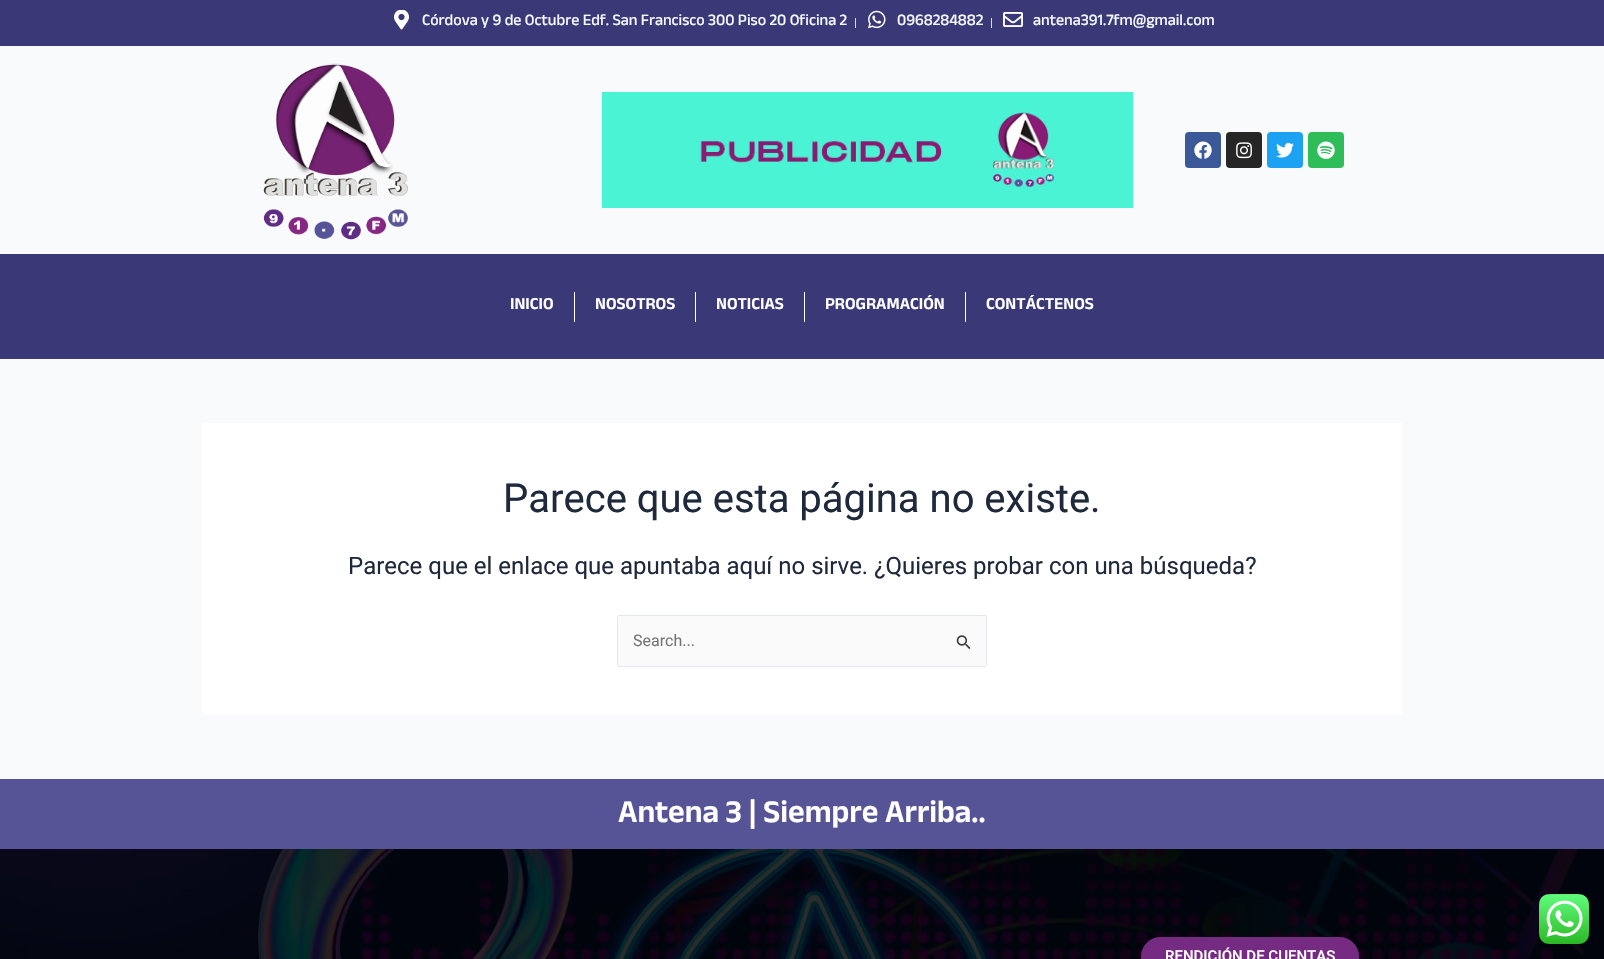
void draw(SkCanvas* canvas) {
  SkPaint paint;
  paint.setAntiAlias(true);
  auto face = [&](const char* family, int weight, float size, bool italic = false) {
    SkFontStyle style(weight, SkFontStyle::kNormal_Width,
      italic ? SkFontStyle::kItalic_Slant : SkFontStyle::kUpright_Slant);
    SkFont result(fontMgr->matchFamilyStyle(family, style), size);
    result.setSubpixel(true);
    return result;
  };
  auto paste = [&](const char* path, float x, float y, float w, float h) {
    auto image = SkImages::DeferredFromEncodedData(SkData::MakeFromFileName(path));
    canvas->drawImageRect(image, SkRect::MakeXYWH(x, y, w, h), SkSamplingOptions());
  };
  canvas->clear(0xfff9fafb);
  paint.setColor(0xff3a3877);
  canvas->drawRect(SkRect::MakeXYWH(0, 0, 1604, 46), paint);
  paste("img/1.png", 394, 10, 15, 20);
  paint.setColor(0xffdddddd);
  canvas->drawRect(SkRect::MakeXYWH(855, 18, 1, 10), paint);
  paste("img/2.png", 868, 10, 18, 19);
  canvas->drawRect(SkRect::MakeXYWH(991, 18, 1, 10), paint);
  paste("img/3.png", 1003, 12, 20, 15);
  paste("img/4.png", 263, 63, 145, 177);
  paste("img/5.png", 602, 92, 531, 116);
  paint.setColor(0xff3b5998);
  canvas->drawRoundRect(SkRect::MakeXYWH(1185, 132, 36, 36), 4, 4, paint);
  paste("img/6.png", 1194, 141, 18, 18);
  paint.setColor(0xff262626);
  canvas->drawRoundRect(SkRect::MakeXYWH(1226, 132, 36, 36), 4, 4, paint);
  paste("img/7.png", 1236, 142, 16, 17);
  paint.setColor(0xff1da1f2);
  canvas->drawRoundRect(SkRect::MakeXYWH(1267, 132, 36, 36), 4, 4, paint);
  paste("img/8.png", 1276, 142, 18, 16);
  paint.setColor(0xff2ebd59);
  canvas->drawRoundRect(SkRect::MakeXYWH(1308, 132, 36, 36), 4, 4, paint);
  paste("img/9.png", 1317, 141, 18, 18);
  {
    const struct { float x, y, w, h; SkColor color; } items[] = {
      {0, 254, 1604, 105, 0xff3a3877},
      {574, 292, 1, 30, 0xffffffff},
      {695, 292, 1, 30, 0xffffffff},
      {804, 292, 1, 30, 0xffffffff},
      {965, 292, 1, 30, 0xffffffff},
      {202, 423, 1200, 292, 0xffffffff},
    };
    for (auto [x, y, w, h, color] : items) {
      paint.setColor(color);
      canvas->drawRect(SkRect::MakeXYWH(x, y, w, h), paint);
    }
  }
  paint.setColor(0xfffafafa);
  canvas->drawRoundRect(SkRect::MakeXYWH(617.5f, 615.5f, 369, 51), 1.5f, 1.5f, paint);
  paint.setStroke(true);
  paint.setStrokeWidth(1);
  paint.setColor(0xffe2e8f0);
  canvas->drawRoundRect(SkRect::MakeXYWH(617.5f, 615.5f, 369, 51), 1.5f, 1.5f, paint);
  paste("img/10.png", 956, 635, 14, 15);
  paint.setStroke(false);
  paint.setColor(0xff565496);
  canvas->drawRect(SkRect::MakeXYWH(0, 779, 1604, 70), paint);
  paint.setColor(0xff000000);
  canvas->drawRect(SkRect::MakeXYWH(0, 849, 1604, 110), paint);
  paste("img/11.png", 0, 849, 1604, 110);
  paint.setColor(0xff752b81);
  canvas->drawRoundRect(SkRect::MakeXYWH(1141, 937, 218, 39), 19.5f, 19.5f, paint);
  paste("img/12.png", 1539, 894, 50, 50);
  auto f0 = face("Anek Devanagari", 500, 16);
  paint.setColor(0xfff6faff);
  {
    const struct { const char* s; float x, y; } items[] = {
      {"Córdova y 9 de Octubre Edf. San Francisco 300 Piso 20 Oficina 2", 422, 25},
      {"0968284882", 897, 25},
      {"antena391.7fm@gmail.com", 1033, 25},
    };
    for (auto [s, x, y] : items) {
      canvas->drawString(s, x, y, f0, paint);
    }
  }
  auto f1 = face("Anek Devanagari", 600, 17);
  paint.setColor(0xffffffff);
  {
    const struct { const char* s; float x, y; } items[] = {
      {"INICIO", 510, 309},
      {"NOSOTROS", 595, 309},
      {"NOTICIAS", 716, 309},
      {"PROGRAMACIÓN", 825, 309},
      {"CONTÁCTENOS", 986, 309},
    };
    for (auto [s, x, y] : items) {
      canvas->drawString(s, x, y, f1, paint);
    }
  }
  auto f2 = face("Roboto", 400, 40);
  paint.setColor(0xff1e293b);
  canvas->drawString("Parece que esta página no existe.", 503, 512, f2, paint);
  auto f3 = face("Roboto", 400, 24);
  canvas->drawString("Parece que el enlace que apuntaba aquí no sirve. ¿Quieres probar con una búsqueda?", 348, 574, f3, paint);
  auto f4 = face("Roboto", 400, 16);
  paint.setColor(0xff757575);
  canvas->drawString("Search...", 633, 646, f4, paint);
  auto f5 = face("Anek Devanagari", 600, 32);
  paint.setColor(0xffffffff);
  canvas->drawString("Antena 3 | Siempre Arriba..", 618, 822, f5, paint);
  auto f6 = face("Roboto", 500, 15);
  canvas->drawString("RENDICIÓN DE CUENTAS", 1165, 961, f6, paint);
}
